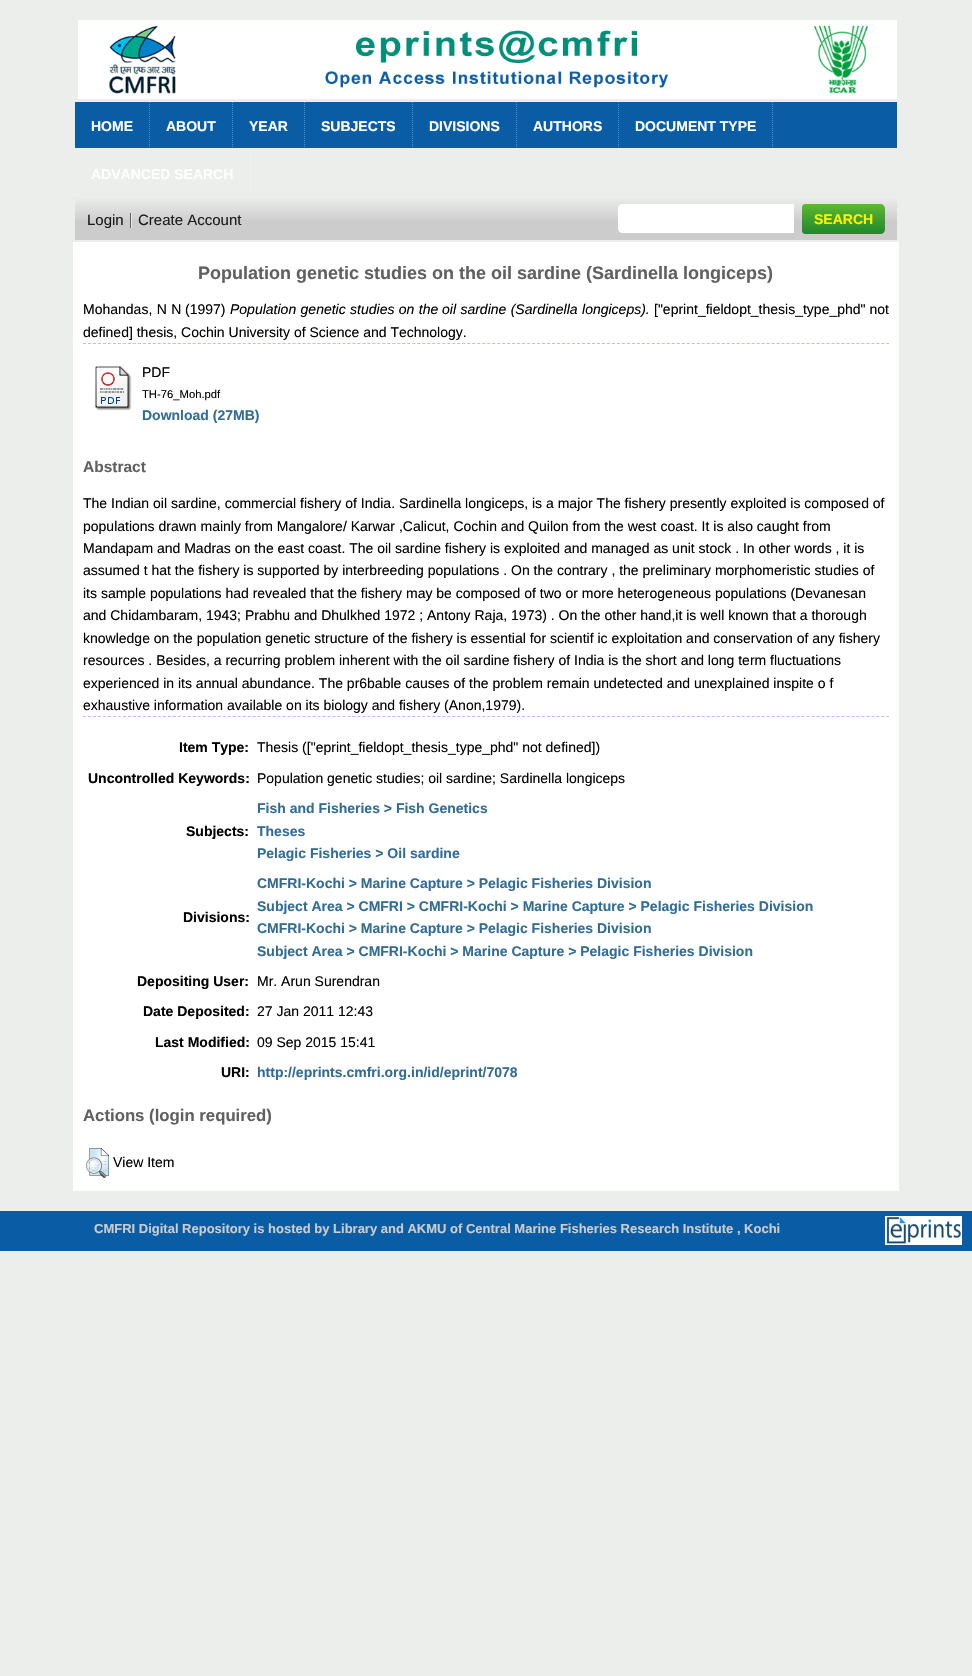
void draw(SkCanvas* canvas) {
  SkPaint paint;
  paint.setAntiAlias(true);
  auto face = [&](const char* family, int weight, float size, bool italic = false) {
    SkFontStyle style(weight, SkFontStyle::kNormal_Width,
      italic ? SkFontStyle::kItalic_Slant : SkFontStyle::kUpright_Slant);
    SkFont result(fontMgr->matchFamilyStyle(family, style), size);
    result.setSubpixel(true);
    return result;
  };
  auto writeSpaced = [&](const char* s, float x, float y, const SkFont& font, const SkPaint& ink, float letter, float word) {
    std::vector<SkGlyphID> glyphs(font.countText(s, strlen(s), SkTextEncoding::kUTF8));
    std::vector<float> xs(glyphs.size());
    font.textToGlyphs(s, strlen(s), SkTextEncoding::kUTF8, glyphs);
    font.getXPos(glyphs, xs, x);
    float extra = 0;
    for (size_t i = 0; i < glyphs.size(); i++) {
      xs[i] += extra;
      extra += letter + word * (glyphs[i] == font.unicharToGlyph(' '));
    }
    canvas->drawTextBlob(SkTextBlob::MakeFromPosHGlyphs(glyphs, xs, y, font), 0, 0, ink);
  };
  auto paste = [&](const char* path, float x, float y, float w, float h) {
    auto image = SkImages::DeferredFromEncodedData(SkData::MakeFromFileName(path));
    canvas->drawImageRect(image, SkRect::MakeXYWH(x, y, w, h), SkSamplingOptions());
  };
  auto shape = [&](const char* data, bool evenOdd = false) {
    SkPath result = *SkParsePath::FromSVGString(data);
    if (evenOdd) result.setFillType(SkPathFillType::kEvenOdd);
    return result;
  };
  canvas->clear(0xffeceeeb);
  paste("img/1.png", 78, 20, 819, 79);
  paint.setColor(0xff0a5da5);
  canvas->drawRect(SkRect::MakeXYWH(75, 102, 822, 46), paint);
  paint.setStroke(true);
  paint.setStrokeWidth(1);
  paint.setColor(0x4dffffff);
  paint.setPathEffect(SkDashPathEffect::Make({{1, 1}}, 0));
  canvas->drawPath(shape("M149.5 102V150"), paint);
  paint.setPathEffect(nullptr);
  paint.setPathEffect(SkDashPathEffect::Make({{1, 1}}, 0));
  canvas->drawPath(shape("M232.5 102V150"), paint);
  paint.setPathEffect(nullptr);
  paint.setPathEffect(SkDashPathEffect::Make({{1, 1}}, 0));
  canvas->drawPath(shape("M304.5 102V150"), paint);
  paint.setPathEffect(nullptr);
  paint.setPathEffect(SkDashPathEffect::Make({{1, 1}}, 0));
  canvas->drawPath(shape("M412.5 102V150"), paint);
  paint.setPathEffect(nullptr);
  paint.setPathEffect(SkDashPathEffect::Make({{1, 1}}, 0));
  canvas->drawPath(shape("M516.5 102V150"), paint);
  paint.setPathEffect(nullptr);
  paint.setPathEffect(SkDashPathEffect::Make({{1, 1}}, 0));
  canvas->drawPath(shape("M618.5 102V150"), paint);
  paint.setPathEffect(nullptr);
  paint.setPathEffect(SkDashPathEffect::Make({{1, 1}}, 0));
  canvas->drawPath(shape("M772.5 102V150"), paint);
  paint.setPathEffect(nullptr);
  paint.setColor(0xfff2f3f1);
  paint.setPathEffect(SkDashPathEffect::Make({{1, 1}}, 0));
  canvas->drawPath(shape("M250.5 150V198"), paint);
  paint.setPathEffect(nullptr);
  paint.setStroke(false);
  paint.setColor(0xffcccccc);
  canvas->drawRect(SkRect::MakeXYWH(75, 198, 822, 42), paint);
  paste("img/2.png", 75, 198, 822, 22);
  paint.setColor(0xff606060);
  canvas->drawRect(SkRect::MakeXYWH(130, 213, 1, 15), paint);
  paint.setColor(0xffe8e8e8);
  canvas->drawRect(SkRect::MakeXYWH(131, 213, 1, 15), paint);
  paint.setColor(0xffffffff);
  canvas->drawPath(shape("M623 204H794V233H623C620 233 618 231 618 228V209C618 206 620 204 623 204Z"), paint);
  {
    const SkColor colors[] = {0xff5eb830, 0xff1f872e};
    const float stops[] = {0, 1};
    const SkPoint ends[] = {{802, 204}, {802, 234}};
    paint.setShader(SkGradientShader::MakeLinear(ends, colors, stops, 2, SkTileMode::kClamp));
    paint.setAlpha(255);
  }
  canvas->drawPath(shape("M805 204H880C883 204 885 206 885 209V229C885 232 883 234 880 234H805C803.5 234 802 232.5 802 231V207C802 205.5 803.5 204 805 204Z"), paint);
  paint.setShader(nullptr);
  paint.setColor(0xffffffff);
  canvas->drawRect(SkRect::MakeXYWH(73, 242, 826, 949), paint);
  paint.setStroke(true);
  paint.setColor(0xffbbbbff);
  paint.setPathEffect(SkDashPathEffect::Make({{3, 1.99f}}, 0));
  canvas->drawPath(shape("M83 343.5H889"), paint);
  paint.setPathEffect(nullptr);
  paste("img/3.png", 95, 366, 37, 45);
  paint.setPathEffect(SkDashPathEffect::Make({{3, 1.99f}}, 0));
  canvas->drawPath(shape("M83 716.5H889"), paint);
  paint.setPathEffect(nullptr);
  paste("img/4.png", 86, 1148, 23, 30);
  paint.setStroke(false);
  paint.setColor(0xff0a5da5);
  canvas->drawRect(SkRect::MakeXYWH(0, 1211, 972, 40), paint);
  paste("img/5.png", 885, 1216, 77, 29);
  auto f0 = face("Liberation Sans", 700, 14);
  paint.setColor(0xffffffff);
  {
    const struct { const char* s; float x, y; } items[] = {
      {"HOME", 91, 131},
      {"ABOUT", 166, 131},
      {"YEAR", 249, 131},
      {"SUBJECTS", 321, 131},
      {"DIVISIONS", 429, 131},
      {"AUTHORS", 533, 131},
      {"DOCUMENT TYPE", 635, 131},
      {"ADVANCED SEARCH", 91, 179},
    };
    for (auto [s, x, y] : items) {
      canvas->drawString(s, x, y, f0, paint);
    }
  }
  auto f1 = face("Liberation Sans", 400, 15);
  paint.setColor(0xff1c1c1c);
  canvas->drawString("Login", 87, 225, f1, paint);
  canvas->drawString("Create Account", 138, 225, f1, paint);
  paint.setColor(0xfffff100);
  canvas->drawString("SEARCH", 814, 224, f0, paint);
  auto f2 = face("Liberation Sans", 700, 18);
  paint.setColor(0xff606060);
  canvas->drawString("Population genetic studies on the oil sardine (Sardinella longiceps)", 198, 279, f2, paint);
  auto f3 = face("Liberation Sans", 400, 14);
  paint.setColor(0xff000000);
  writeSpaced("Mohandas, N N", 83, 314, f3, paint, 0, 0.5f);
  canvas->drawString("(1997)", 185, 314, f3, paint);
  auto f4 = face("Liberation Sans", 400, 14, true);
  writeSpaced("Population genetic studies on the", 230, 314, f4, paint, 0, 0.5f);
  writeSpaced("oil sardine (Sardinella longiceps).", 442, 314, f4, paint, 0, 0.5f);
  {
    const struct { const char* s; float x, y; } items[] = {
      {"[\"eprint_fieldopt_thesis_type_phd\" not", 654, 314},
      {"defined] thesis, Cochin University of Science and Technology.", 83, 337},
      {"PDF", 142, 377},
    };
    for (auto [s, x, y] : items) {
      canvas->drawString(s, x, y, f3, paint);
    }
  }
  auto f5 = face("Liberation Sans", 400, 11.25f);
  canvas->drawString("TH-76_Moh.pdf", 142, 398, f5, paint);
  paint.setColor(0xff316c96);
  canvas->drawString("Download (27MB)", 142, 420, f0, paint);
  auto f6 = face("Liberation Sans", 700, 15.5f);
  paint.setColor(0xff606060);
  canvas->drawString("Abstract", 83, 472, f6, paint);
  paint.setColor(0xff000000);
  {
    const struct { const char* s; float x, y; } items[] = {
      {"The Indian oil sardine, commercial fishery of India. Sardinella longiceps, is a major The fishery presently exploited is composed of", 83, 508},
      {"populations drawn mainly from Mangalore/ Karwar ,Calicut, Cochin and Quilon from the west coast. It is also caught from", 83, 531},
      {"Mandapam and Madras on the east coast. The oil sardine fishery is exploited and managed as unit stock . In other words , it is", 83, 553},
      {"assumed t hat the fishery is supported by interbreeding populations . On the contrary , the preliminary morphomeristic studies of", 83, 575},
      {"its sample populations had revealed that the fishery may be composed of two or more heterogeneous populations (Devanesan", 83, 598},
      {"and Chidambaram, 1943; Prabhu and Dhulkhed 1972 ; Antony Raja, 1973) . On the other hand,it is well known that a thorough", 83, 620},
      {"knowledge on the population genetic structure of the fishery is essential for scientif ic exploitation and conservation of any fishery", 83, 643},
      {"resources . Besides, a recurring problem inherent with the oil sardine fishery of India is the short and long term fluctuations", 83, 665},
      {"experienced in its annual abundance. The pr6bable causes of the problem remain undetected and unexplained inspite o f", 83, 688},
      {"exhaustive information available on its biology and fishery (Anon,1979).", 83, 710},
    };
    for (auto [s, x, y] : items) {
      canvas->drawString(s, x, y, f3, paint);
    }
  }
  canvas->drawString("Item Type:", 179, 752, f0, paint);
  canvas->drawString("Thesis ([\"eprint_fieldopt_thesis_type_phd\" not defined])", 257, 752, f3, paint);
  canvas->drawString("Uncontrolled Keywords:", 88, 783, f0, paint);
  canvas->drawString("Population genetic studies; oil sardine; Sardinella longiceps", 257, 783, f3, paint);
  canvas->drawString("Subjects:", 186, 836, f0, paint);
  paint.setColor(0xff316c96);
  {
    const struct { const char* s; float x, y; } items[] = {
      {"Fish and Fisheries > Fish Genetics", 257, 813},
      {"Theses", 257, 836},
      {"Pelagic Fisheries > Oil sardine", 257, 858},
    };
    for (auto [s, x, y] : items) {
      canvas->drawString(s, x, y, f0, paint);
    }
  }
  paint.setColor(0xff000000);
  canvas->drawString("Divisions:", 183, 922, f0, paint);
  paint.setColor(0xff316c96);
  {
    const struct { const char* s; float x, y; } items[] = {
      {"CMFRI-Kochi > Marine Capture > Pelagic Fisheries Division", 257, 888},
      {"Subject Area > CMFRI > CMFRI-Kochi > Marine Capture > Pelagic Fisheries Division", 257, 911},
      {"CMFRI-Kochi > Marine Capture > Pelagic Fisheries Division", 257, 933},
      {"Subject Area > CMFRI-Kochi > Marine Capture > Pelagic Fisheries Division", 257, 956},
    };
    for (auto [s, x, y] : items) {
      canvas->drawString(s, x, y, f0, paint);
    }
  }
  paint.setColor(0xff000000);
  canvas->drawString("Depositing User:", 137, 986, f0, paint);
  canvas->drawString("Mr. Arun Surendran", 257, 986, f3, paint);
  canvas->drawString("Date Deposited:", 143, 1016, f0, paint);
  canvas->drawString("27 Jan 2011 12:43", 257, 1016, f3, paint);
  canvas->drawString("Last Modified:", 155, 1047, f0, paint);
  canvas->drawString("09 Sep 2015 15:41", 257, 1047, f3, paint);
  canvas->drawString("URI:", 221, 1077, f0, paint);
  paint.setColor(0xff316c96);
  canvas->drawString("http://eprints.cmfri.org.in/id/eprint/7078", 257, 1077, f0, paint);
  auto f7 = face("Liberation Sans", 700, 16.75f);
  paint.setColor(0xff606060);
  canvas->drawString("Actions (login required)", 83, 1121, f7, paint);
  paint.setColor(0xff000000);
  canvas->drawString("View Item", 113, 1167, f3, paint);
  auto f8 = face("Liberation Sans", 700, 13);
  paint.setColor(0xffcccccc);
  canvas->drawString("CMFRI Digital Repository is hosted by Library and AKMU of Central Marine Fisheries Research Institute , Kochi", 94, 1233, f8, paint);
}
